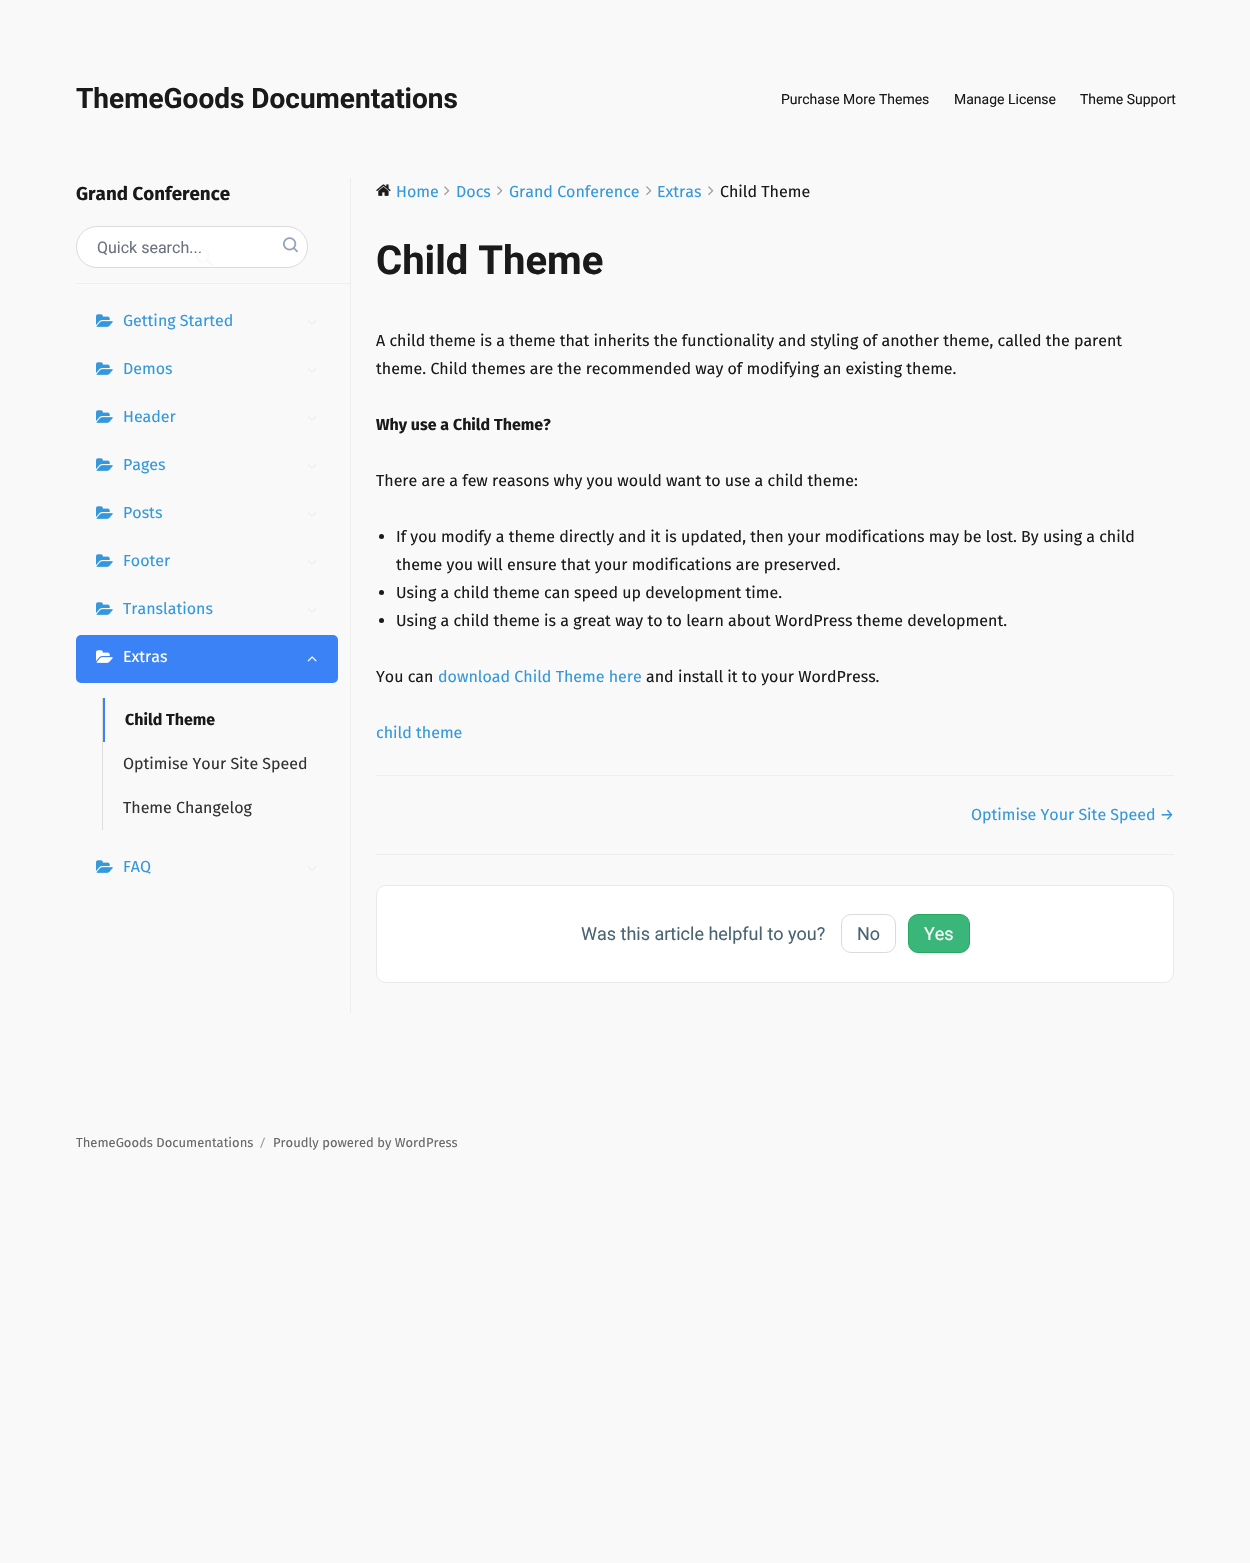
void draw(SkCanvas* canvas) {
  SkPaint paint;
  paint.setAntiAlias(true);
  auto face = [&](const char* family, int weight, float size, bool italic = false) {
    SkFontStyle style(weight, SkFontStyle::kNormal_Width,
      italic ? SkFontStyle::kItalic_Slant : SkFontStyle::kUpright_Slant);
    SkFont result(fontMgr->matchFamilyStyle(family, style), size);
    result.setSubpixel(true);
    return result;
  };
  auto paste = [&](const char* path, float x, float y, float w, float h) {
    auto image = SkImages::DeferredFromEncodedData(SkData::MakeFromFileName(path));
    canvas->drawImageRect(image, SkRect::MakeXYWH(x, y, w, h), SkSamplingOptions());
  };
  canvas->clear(0xfff9f9f9);
  paint.setColor(0xffeeeeee);
  canvas->drawRect(SkRect::MakeXYWH(76, 283, 274, 1), paint);
  paint.setColor(0xffffffff);
  canvas->drawRoundRect(SkRect::MakeXYWH(76.5f, 226.5f, 231, 41), 20.5f, 20.5f, paint);
  paint.setStroke(true);
  paint.setStrokeWidth(1);
  paint.setColor(0xffdbdbdb);
  canvas->drawRoundRect(SkRect::MakeXYWH(76.5f, 226.5f, 231, 41), 20.5f, 20.5f, paint);
  paste("img/1.png", 283, 237, 15, 16);
  paste("img/3.png", 96, 314, 17, 13);
  paste("img/4.png", 308, 320, 9, 5);
  paste("img/3.png", 96, 362, 17, 13);
  paste("img/4.png", 308, 368, 9, 5);
  paste("img/3.png", 96, 410, 17, 13);
  paste("img/4.png", 308, 416, 9, 5);
  paste("img/3.png", 96, 458, 17, 13);
  paste("img/4.png", 308, 464, 9, 5);
  paste("img/3.png", 96, 506, 17, 13);
  paste("img/4.png", 308, 512, 9, 5);
  paste("img/3.png", 96, 554, 17, 13);
  paste("img/4.png", 308, 560, 9, 5);
  paste("img/3.png", 96, 602, 17, 13);
  paste("img/4.png", 308, 608, 9, 5);
  paint.setStroke(false);
  paint.setColor(0xff3b82f6);
  canvas->drawRoundRect(SkRect::MakeXYWH(76, 635, 262, 48), 5, 5, paint);
  paste("img/5.png", 96, 650, 17, 13);
  paste("img/6.png", 307, 656, 10, 6);
  paint.setColor(0xffdddddd);
  canvas->drawRect(SkRect::MakeXYWH(102, 698, 1, 132), paint);
  paint.setColor(0xff3b82f6);
  canvas->drawRect(SkRect::MakeXYWH(103, 698, 2, 44), paint);
  paste("img/3.png", 96, 860, 17, 13);
  paste("img/4.png", 308, 866, 9, 5);
  paint.setColor(0xffeeeeee);
  canvas->drawRect(SkRect::MakeXYWH(350, 178, 1, 835), paint);
  paste("img/7.png", 376, 184, 15, 12);
  paste("img/8.png", 444, 186, 6, 10);
  paste("img/8.png", 497, 186, 6, 10);
  paste("img/8.png", 646, 186, 6, 10);
  paste("img/8.png", 708, 186, 6, 10);
  paint.setColor(0xff1a1a1a);
  canvas->drawCircle(381.5f, 536.5f, 2.5f, paint);
  canvas->drawCircle(381.5f, 592.5f, 2.5f, paint);
  canvas->drawCircle(381.5f, 620.5f, 2.5f, paint);
  paint.setColor(0xffeeeeee);
  canvas->drawRect(SkRect::MakeXYWH(376, 775, 798, 1), paint);
  canvas->drawRect(SkRect::MakeXYWH(376, 854, 798, 1), paint);
  paint.setColor(0xffffffff);
  canvas->drawRoundRect(SkRect::MakeXYWH(376.5f, 885.5f, 797, 97), 9.5f, 9.5f, paint);
  paint.setStroke(true);
  paint.setColor(0xffe9e9e9);
  canvas->drawRoundRect(SkRect::MakeXYWH(376.5f, 885.5f, 797, 97), 9.5f, 9.5f, paint);
  paint.setColor(0xffdbdbdb);
  canvas->drawRoundRect(SkRect::MakeXYWH(841.5f, 914.5f, 54, 38), 9.5f, 9.5f, paint);
  paint.setStroke(false);
  paint.setColor(0xff3bb67b);
  canvas->drawRoundRect(SkRect::MakeXYWH(908.5f, 914.5f, 61, 38), 9.5f, 9.5f, paint);
  paint.setStroke(true);
  paint.setColor(0xff26aa5e);
  canvas->drawRoundRect(SkRect::MakeXYWH(908.5f, 914.5f, 61, 38), 9.5f, 9.5f, paint);
  auto f0 = face("Roboto", 700, 28);
  paint.setStroke(false);
  paint.setColor(0xff1a1a1a);
  canvas->drawString("ThemeGoods Documentations", 76, 108, f0, paint);
  auto f1 = face("Roboto", 400, 14);
  {
    const struct { const char* s; float x, y; } items[] = {
      {"Purchase More Themes", 781, 104},
      {"Manage License", 954, 104},
      {"Theme Support", 1080, 104},
    };
    for (auto [s, x, y] : items) {
      canvas->drawString(s, x, y, f1, paint);
    }
  }
  auto f2 = face("Fira Sans", 700, 18.75f);
  canvas->drawString("Grand Conference", 76, 200, f2, paint);
  auto f3 = face("Roboto", 400, 16);
  paint.setColor(0xff6b7280);
  canvas->drawString("Quick search...", 97, 253, f3, paint);
  paste("img/2.png", 196, 249, 18, 18);
  auto f4 = face("Fira Sans", 400, 16);
  paint.setColor(0xff3598db);
  {
    const struct { const char* s; float x, y; } items[] = {
      {"Getting Started", 123, 326},
      {"Demos", 123, 374},
      {"Header", 123, 422},
      {"Pages", 123, 470},
      {"Posts", 123, 518},
      {"Footer", 123, 566},
      {"Translations", 123, 614},
    };
    for (auto [s, x, y] : items) {
      canvas->drawString(s, x, y, f4, paint);
    }
  }
  paint.setColor(0xffffffff);
  canvas->drawString("Extras", 123, 662, f4, paint);
  auto f5 = face("Fira Sans", 700, 16);
  paint.setColor(0xff1a1a1a);
  canvas->drawString("Child Theme", 125, 725, f5, paint);
  paint.setColor(0xff333333);
  canvas->drawString("Optimise Your Site Speed", 123, 769, f4, paint);
  canvas->drawString("Theme Changelog", 123, 813, f4, paint);
  paint.setColor(0xff3598db);
  {
    const struct { const char* s; float x, y; } items[] = {
      {"FAQ", 123, 872},
      {"Home", 396, 197},
      {"Docs", 456, 197},
      {"Grand Conference", 509, 197},
      {"Extras", 657, 197},
    };
    for (auto [s, x, y] : items) {
      canvas->drawString(s, x, y, f4, paint);
    }
  }
  paint.setColor(0xff1a1a1a);
  canvas->drawString("Child Theme", 720, 197, f4, paint);
  auto f6 = face("Roboto", 700, 40);
  canvas->drawString("Child Theme", 376, 274, f6, paint);
  canvas->drawString("A child theme is a theme that inherits the functionality and styling of another theme, called the parent", 376, 346, f4, paint);
  canvas->drawString("theme. Child themes are the recommended way of modifying an existing theme.", 376, 374, f4, paint);
  canvas->drawString("Why use a Child Theme?", 376, 430, f5, paint);
  {
    const struct { const char* s; float x, y; } items[] = {
      {"There are a few reasons why you would want to use a child theme:", 376, 486},
      {"If you modify a theme directly and it is updated, then your modifications may be lost. By using a child", 396, 542},
      {"theme you will ensure that your modifications are preserved.", 396, 570},
      {"Using a child theme can speed up development time.", 396, 598},
      {"Using a child theme is a great way to to learn about WordPress theme development.", 396, 626},
      {"You can", 376, 682},
    };
    for (auto [s, x, y] : items) {
      canvas->drawString(s, x, y, f4, paint);
    }
  }
  paint.setColor(0xff3598db);
  canvas->drawString("download Child Theme here", 438, 682, f4, paint);
  paint.setColor(0xff1a1a1a);
  canvas->drawString("and install it to your WordPress.", 646, 682, f4, paint);
  paint.setColor(0xff3598db);
  canvas->drawString("child theme", 376, 738, f4, paint);
  canvas->drawString("Optimise Your Site Speed →", 971, 820, f4, paint);
  auto f7 = face("Roboto", 400, 18);
  paint.setColor(0xff4a6474);
  canvas->drawString("Was this article helpful to you?", 581, 940, f7, paint);
  canvas->drawString("No", 857, 940, f7, paint);
  paint.setColor(0xffffffff);
  canvas->drawString("Yes", 924, 940, f7, paint);
  auto f8 = face("Fira Sans", 400, 13);
  paint.setColor(0xff686868);
  canvas->drawString("ThemeGoods Documentations", 76, 1147, f8, paint);
  auto f9 = face("Roboto", 400, 13);
  paint.setColor(0xff949494);
  canvas->drawString("/", 260, 1147, f9, paint);
  paint.setColor(0xff686868);
  canvas->drawString("Proudly powered by WordPress", 273, 1147, f8, paint);
}
